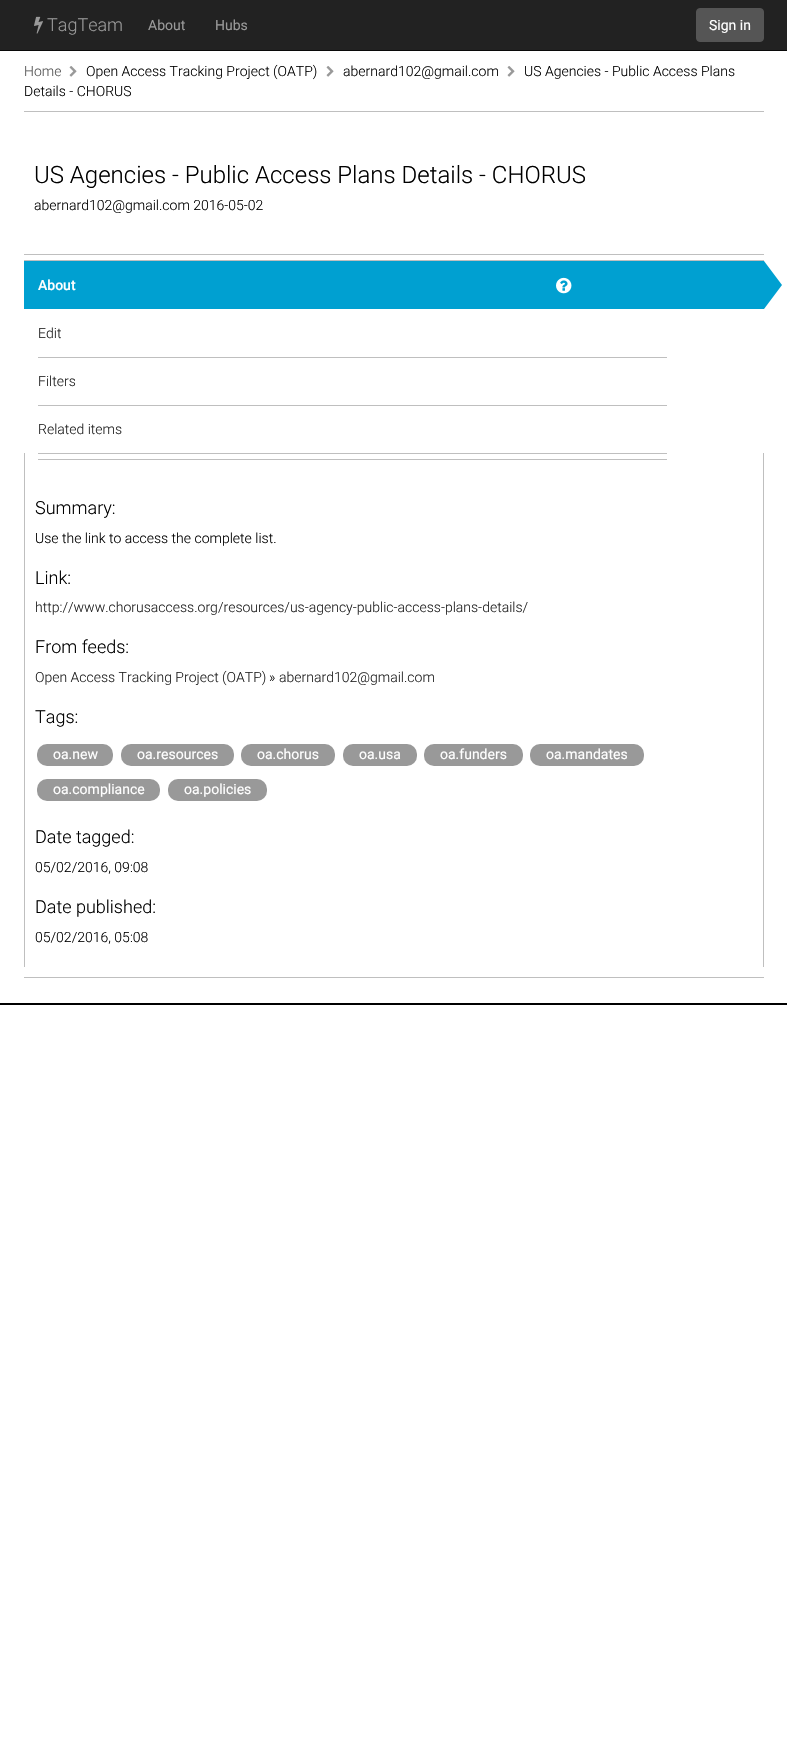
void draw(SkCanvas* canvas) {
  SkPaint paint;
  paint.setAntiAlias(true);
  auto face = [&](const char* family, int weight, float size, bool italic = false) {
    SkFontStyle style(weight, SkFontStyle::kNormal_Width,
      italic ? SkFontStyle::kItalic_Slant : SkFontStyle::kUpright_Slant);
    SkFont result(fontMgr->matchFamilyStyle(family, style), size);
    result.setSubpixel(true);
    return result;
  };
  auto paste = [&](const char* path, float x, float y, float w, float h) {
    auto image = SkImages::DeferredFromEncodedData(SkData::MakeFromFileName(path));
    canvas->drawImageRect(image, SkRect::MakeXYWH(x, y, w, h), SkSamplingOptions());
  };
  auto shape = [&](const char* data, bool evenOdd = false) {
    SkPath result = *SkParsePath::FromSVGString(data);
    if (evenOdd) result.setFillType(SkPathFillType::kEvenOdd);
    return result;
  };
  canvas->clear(0xffffffff);
  paint.setColor(0xff222222);
  canvas->drawRect(SkRect::MakeXYWH(0, 0, 787, 50), paint);
  paint.setColor(0xff090909);
  canvas->drawRect(SkRect::MakeXYWH(0, 50, 787, 1), paint);
  paste("img/1.png", 34, 16, 9, 18);
  paint.setColor(0xff555555);
  canvas->drawRoundRect(SkRect::MakeXYWH(696.5f, 8.5f, 67, 33), 3.5f, 3.5f, paint);
  paint.setStroke(true);
  paint.setStrokeWidth(1);
  canvas->drawRoundRect(SkRect::MakeXYWH(696.5f, 8.5f, 67, 33), 3.5f, 3.5f, paint);
  paint.setStroke(false);
  paint.setColor(0xffbfbfbf);
  canvas->drawRect(SkRect::MakeXYWH(24, 111, 740, 1), paint);
  paste("img/2.png", 69, 66, 8, 11);
  paste("img/2.png", 326, 66, 8, 11);
  paste("img/2.png", 507, 66, 8, 11);
  {
    const struct { float x, y, w, h; SkColor color; } items[] = {
      {24, 254, 740, 1, 0xffbfbfbf},
      {24, 260, 740, 1, 0xffbfbfbf},
      {24, 977, 740, 1, 0xffbfbfbf},
      {24, 261, 740, 48, 0xff00a0d1},
    };
    for (auto [x, y, w, h, color] : items) {
      paint.setColor(color);
      canvas->drawRect(SkRect::MakeXYWH(x, y, w, h), paint);
    }
  }
  paste("img/3.png", 556, 277, 16, 17);
  canvas->drawPath(shape("M764 309V261L782 285Z"), paint);
  {
    const struct { float x, y, w, h; SkColor color; } items[] = {
      {764, 307, 1, 1, 0xff00a0d1},
      {38, 357, 629, 1, 0xffbfbfbf},
      {38, 405, 629, 1, 0xffbfbfbf},
      {38, 453, 629, 1, 0xffbfbfbf},
      {38, 459, 629, 1, 0xffbfbfbf},
      {763, 453, 1, 514, 0xffbfbfbf},
      {24, 453, 1, 514, 0xffbfbfbf},
    };
    for (auto [x, y, w, h, color] : items) {
      paint.setColor(color);
      canvas->drawRect(SkRect::MakeXYWH(x, y, w, h), paint);
    }
  }
  paint.setColor(0xff999999);
  canvas->drawRoundRect(SkRect::MakeXYWH(37, 744, 76, 22), 10, 10, paint);
  canvas->drawRoundRect(SkRect::MakeXYWH(121, 744, 113, 22), 10, 10, paint);
  canvas->drawRoundRect(SkRect::MakeXYWH(241, 744, 94, 22), 10, 10, paint);
  canvas->drawRoundRect(SkRect::MakeXYWH(343, 744, 74, 22), 10, 10, paint);
  canvas->drawRoundRect(SkRect::MakeXYWH(424, 744, 99, 22), 10, 10, paint);
  canvas->drawRoundRect(SkRect::MakeXYWH(530, 744, 114, 22), 10, 10, paint);
  canvas->drawRoundRect(SkRect::MakeXYWH(37, 779, 123, 22), 10, 10, paint);
  canvas->drawRoundRect(SkRect::MakeXYWH(168, 779, 99, 22), 10, 10, paint);
  paint.setColor(0xff000000);
  canvas->drawRect(SkRect::MakeXYWH(0, 1003, 787, 2), paint);
  auto f0 = face("Roboto", 300, 18);
  paint.setColor(0xff999999);
  canvas->drawString("TagTeam", 47, 31, f0, paint);
  auto f1 = face("Roboto", 400, 14);
  canvas->drawString("About", 148, 30, f1, paint);
  canvas->drawString("Hubs", 215, 30, f1, paint);
  paint.setColor(0xffffffff);
  canvas->drawString("Sign in", 709, 30, f1, paint);
  auto f2 = face("Roboto", 300, 14);
  paint.setColor(0xff555555);
  canvas->drawString("Home", 24, 76, f2, paint);
  paint.setColor(0xff000000);
  {
    const struct { const char* s; float x, y; } items[] = {
      {"Open Access Tracking Project (OATP)", 86, 76},
      {"abernard102@gmail.com", 343, 76},
      {"US Agencies - Public Access Plans", 524, 76},
      {"Details - CHORUS", 24, 96},
    };
    for (auto [s, x, y] : items) {
      canvas->drawString(s, x, y, f2, paint);
    }
  }
  auto f3 = face("Roboto", 300, 24);
  canvas->drawString("US Agencies - Public Access Plans Details - CHORUS", 34, 183, f3, paint);
  canvas->drawString("abernard102@gmail.com 2016-05-02", 34, 210, f2, paint);
  auto f4 = face("Roboto", 500, 14);
  paint.setColor(0xffffffff);
  canvas->drawString("About", 38, 290, f4, paint);
  paint.setColor(0xff222222);
  {
    const struct { const char* s; float x, y; } items[] = {
      {"Edit", 38, 338},
      {"Filters", 38, 386},
      {"Related items", 38, 434},
    };
    for (auto [s, x, y] : items) {
      canvas->drawString(s, x, y, f2, paint);
    }
  }
  paint.setColor(0xff000000);
  canvas->drawString("Summary:", 35, 514, f0, paint);
  canvas->drawString("Use the link to access the complete list.", 35, 543, f2, paint);
  canvas->drawString("Link:", 35, 584, f0, paint);
  paint.setColor(0xff222222);
  canvas->drawString("http://www.chorusaccess.org/resources/us-agency-public-access-plans-details/", 35, 612, f2, paint);
  paint.setColor(0xff000000);
  canvas->drawString("From feeds:", 35, 653, f0, paint);
  paint.setColor(0xff222222);
  canvas->drawString("Open Access Tracking Project (OATP)", 35, 682, f2, paint);
  paint.setColor(0xff000000);
  canvas->drawString("»", 269, 682, f2, paint);
  paint.setColor(0xff222222);
  canvas->drawString("abernard102@gmail.com", 279, 682, f2, paint);
  paint.setColor(0xff000000);
  canvas->drawString("Tags:", 35, 723, f0, paint);
  paint.setColor(0xffffffff);
  {
    const struct { const char* s; float x, y; } items[] = {
      {"oa.new", 53, 759},
      {"oa.resources", 137, 759},
      {"oa.chorus", 257, 759},
      {"oa.usa", 359, 759},
      {"oa.funders", 440, 759},
      {"oa.mandates", 546, 759},
      {"oa.compliance", 53, 794},
      {"oa.policies", 184, 794},
    };
    for (auto [s, x, y] : items) {
      canvas->drawString(s, x, y, f1, paint);
    }
  }
  paint.setColor(0xff000000);
  canvas->drawString("Date tagged:", 35, 843, f0, paint);
  canvas->drawString("05/02/2016, 09:08", 35, 872, f2, paint);
  canvas->drawString("Date published:", 35, 913, f0, paint);
  canvas->drawString("05/02/2016, 05:08", 35, 942, f2, paint);
}
